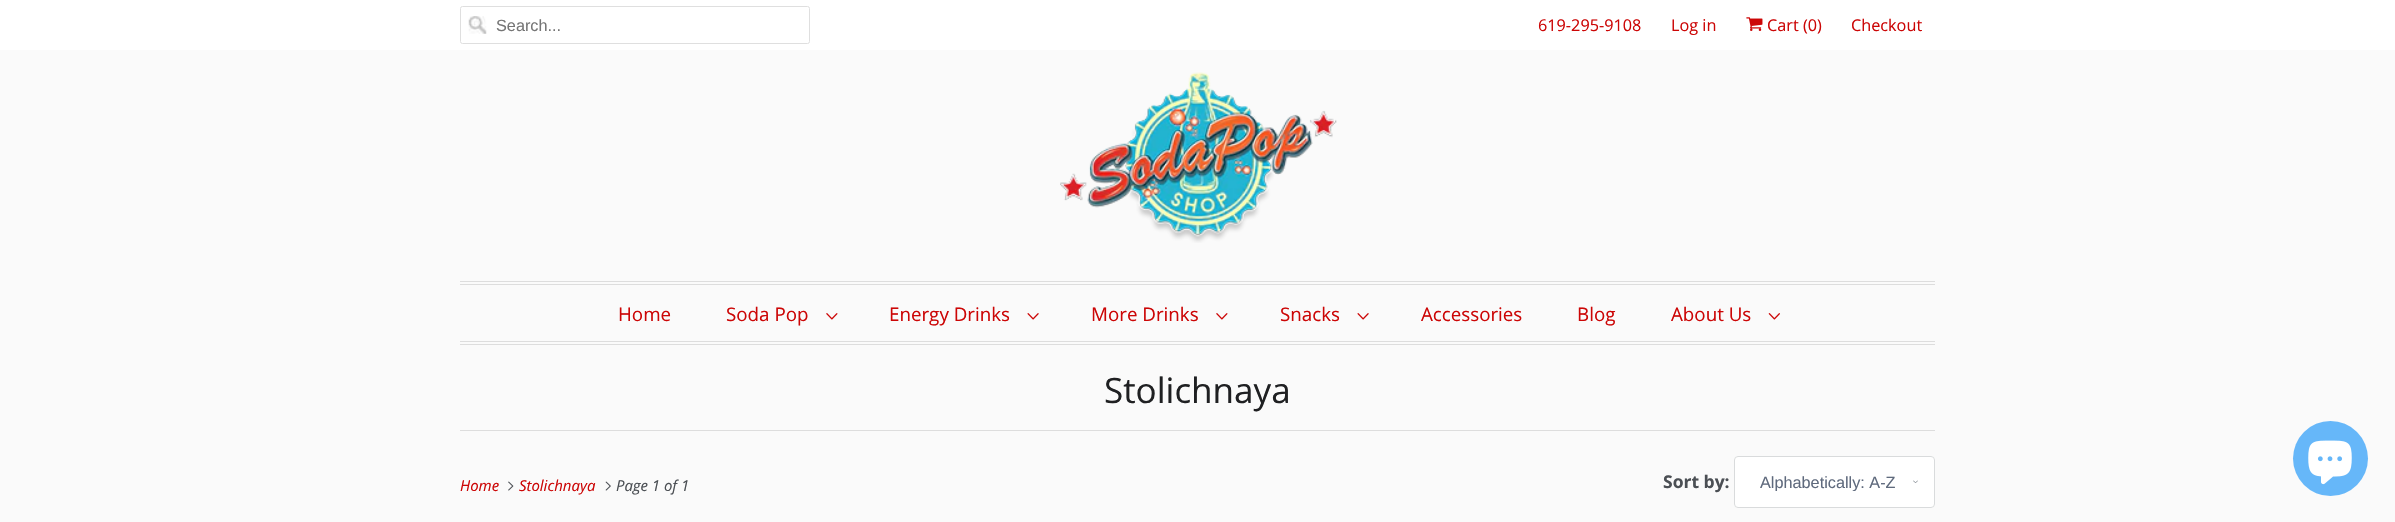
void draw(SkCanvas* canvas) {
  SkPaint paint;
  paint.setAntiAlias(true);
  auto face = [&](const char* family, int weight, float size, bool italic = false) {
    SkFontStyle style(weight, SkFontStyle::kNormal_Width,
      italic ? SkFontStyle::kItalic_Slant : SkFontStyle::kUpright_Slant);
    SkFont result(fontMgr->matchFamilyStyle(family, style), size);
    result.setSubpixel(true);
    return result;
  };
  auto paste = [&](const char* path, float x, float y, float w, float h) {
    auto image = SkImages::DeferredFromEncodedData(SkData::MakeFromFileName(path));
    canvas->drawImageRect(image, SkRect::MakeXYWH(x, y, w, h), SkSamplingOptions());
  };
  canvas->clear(0xfffafafa);
  paint.setColor(0xffffffff);
  canvas->drawRect(SkRect::MakeXYWH(0, 0, 2395, 50), paint);
  paste("img/1.png", 468, 16, 19, 18);
  paint.setStroke(true);
  paint.setStrokeWidth(1);
  paint.setColor(0xffdfdfdf);
  canvas->drawRoundRect(SkRect::MakeXYWH(460.5f, 6.5f, 349, 37), 2, 2, paint);
  paste("img/2.png", 1746, 17, 17, 14);
  paste("img/3.png", 1060, 72, 277, 171);
  paint.setStroke(false);
  {
    const struct { float x, y, w, h; SkColor color; } items[] = {
      {460, 281, 1475, 1, 0xffdddddd},
      {460, 284, 1475, 1, 0xffdddddd},
      {460, 341, 1475, 1, 0xffdddddd},
      {460, 344, 1475, 1, 0xffdddddd},
    };
    for (auto [x, y, w, h, color] : items) {
      paint.setColor(color);
      canvas->drawRect(SkRect::MakeXYWH(x, y, w, h), paint);
    }
  }
  paste("img/4.png", 826, 313, 12, 7);
  paste("img/5.png", 1027, 313, 12, 7);
  paste("img/4.png", 1216, 313, 12, 7);
  paste("img/5.png", 1357, 313, 12, 7);
  paste("img/6.png", 1768, 313, 12, 7);
  canvas->drawRect(SkRect::MakeXYWH(460, 430, 1475, 1), paint);
  paste("img/7.png", 508, 481, 6, 10);
  paste("img/8.png", 605, 481, 6, 10);
  paint.setColor(0xffffffff);
  canvas->drawRoundRect(SkRect::MakeXYWH(1734, 456, 201, 52), 4, 4, paint);
  paste("img/9.png", 1913, 480, 5, 3);
  paint.setStroke(true);
  paint.setColor(0xffd9dbdc);
  canvas->drawRoundRect(SkRect::MakeXYWH(1734.5f, 456.5f, 200, 51), 3.5f, 3.5f, paint);
  paint.setStroke(false);
  paint.setColor(0xff66b7f9);
  canvas->drawCircle(2330.5f, 458.5f, 37.5f, paint);
  paste("img/10.png", 2308, 440, 44, 45);
  auto f0 = face("Liberation Sans", 400, 16.25f);
  paint.setColor(0xff757575);
  canvas->drawString("Search...", 496, 31, f0, paint);
  auto f1 = face("Open Sans", 400, 16.25f);
  paint.setColor(0xffcc0606);
  {
    const struct { const char* s; float x, y; } items[] = {
      {"619-295-9108", 1538, 31},
      {"Log in", 1671, 31},
      {"Cart (0)", 1767, 31},
      {"Checkout", 1851, 31},
    };
    for (auto [s, x, y] : items) {
      canvas->drawString(s, x, y, f1, paint);
    }
  }
  auto f2 = face("Open Sans", 400, 18.75f);
  {
    const struct { const char* s; float x, y; } items[] = {
      {"Home", 618, 321},
      {"Soda Pop", 726, 321},
      {"Energy Drinks", 889, 321},
      {"More Drinks", 1091, 321},
      {"Snacks", 1280, 321},
      {"Accessories", 1421, 321},
      {"Blog", 1577, 321},
      {"About Us", 1671, 321},
    };
    for (auto [s, x, y] : items) {
      canvas->drawString(s, x, y, f2, paint);
    }
  }
  auto f3 = face("Open Sans", 400, 35);
  paint.setColor(0xff1f2022);
  canvas->drawString("Stolichnaya", 1104, 403, f3, paint);
  auto f4 = face("Open Sans", 400, 15, true);
  paint.setColor(0xffcc0606);
  canvas->drawString("Home", 460, 491, f4, paint);
  canvas->drawString("Stolichnaya", 519, 491, f4, paint);
  paint.setColor(0xff4b4f54);
  canvas->drawString("Page 1 of 1", 616, 491, f4, paint);
  auto f5 = face("Open Sans", 700, 17.5f);
  canvas->drawString("Sort by:", 1663, 488, f5, paint);
  canvas->save();
  canvas->clipRect(SkRect::MakeXYWH(1760, 473, 136, 18));
  paint.setColor(0xff5f6a7d);
  canvas->drawString("Alphabetically: A-Z", 1760, 488, f0, paint);
  canvas->restore();
}
